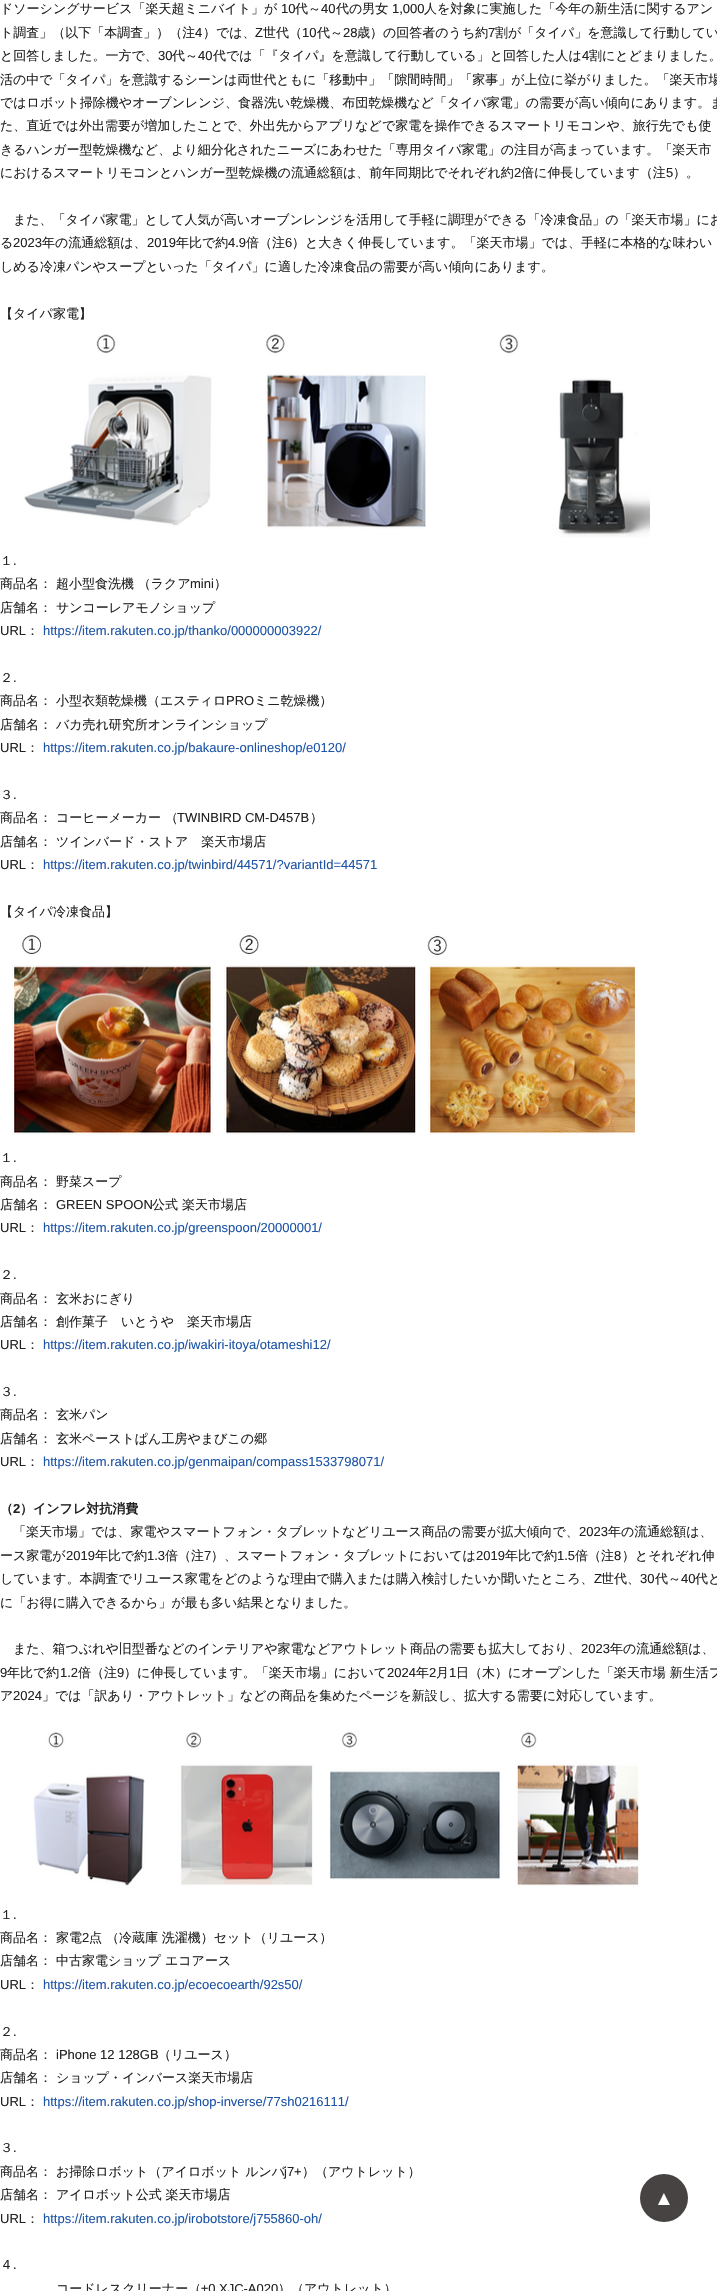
void draw(SkCanvas* canvas) {
  SkPaint paint;
  paint.setAntiAlias(true);
  auto face = [&](const char* family, int weight, float size, bool italic = false) {
    SkFontStyle style(weight, SkFontStyle::kNormal_Width,
      italic ? SkFontStyle::kItalic_Slant : SkFontStyle::kUpright_Slant);
    SkFont result(fontMgr->matchFamilyStyle(family, style), size);
    result.setSubpixel(true);
    return result;
  };
  auto paste = [&](const char* path, float x, float y, float w, float h) {
    auto image = SkImages::DeferredFromEncodedData(SkData::MakeFromFileName(path));
    canvas->drawImageRect(image, SkRect::MakeXYWH(x, y, w, h), SkSamplingOptions());
  };
  canvas->clear(0xffffffff);
  paste("img/1.png", 24, 334, 626, 204);
  paste("img/2.png", 12, 933, 623, 202);
  paste("img/3.png", 33, 1732, 606, 154);
  paint.setColor(0xff474342);
  canvas->drawCircle(664, 2198, 24, paint);
  auto f0 = face("WenQuanYi Zen Hei", 500, 13);
  paint.setColor(0xff222222);
  canvas->drawString("ドソーシングサービス「楽天超ミニバイト」が", 0, 13, f0, paint);
  auto f1 = face("Liberation Sans", 400, 13);
  canvas->drawString("10", 281, 13, f1, paint);
  canvas->drawString("代～", 295, 13, f0, paint);
  canvas->drawString("40", 321, 13, f1, paint);
  canvas->drawString("代の男女", 336, 13, f0, paint);
  canvas->drawString("1,000", 392, 13, f1, paint);
  canvas->drawString("人を対象に実施した「今年の新生活に関するアン", 424, 13, f0, paint);
  canvas->drawString("ト調査」（以下「本調査」）（注", 0, 37, f0, paint);
  canvas->drawString("4", 195, 37, f1, paint);
  canvas->drawString("）では、", 203, 37, f0, paint);
  canvas->drawString("Z", 255, 37, f1, paint);
  canvas->drawString("世代（", 263, 37, f0, paint);
  canvas->drawString("10", 302, 37, f1, paint);
  canvas->drawString("代～", 317, 37, f0, paint);
  canvas->drawString("28", 343, 37, f1, paint);
  canvas->drawString("歳）の回答者のうち約", 357, 37, f0, paint);
  canvas->drawString("7", 488, 37, f1, paint);
  canvas->drawString("割が「タイパ」を意識して行動してい", 495, 37, f0, paint);
  canvas->drawString("と回答しました。一方で、", 0, 60, f0, paint);
  canvas->drawString("30", 158, 60, f1, paint);
  canvas->drawString("代～", 172, 60, f0, paint);
  canvas->drawString("40", 198, 60, f1, paint);
  canvas->drawString("代では「『タイパ』を意識して行動している」と回答した人は", 213, 60, f0, paint);
  canvas->drawString("4", 582, 60, f1, paint);
  {
    const struct { const char* s; float x, y; } items[] = {
      {"割にとどまりました。", 589, 60},
      {"活の中で「タイパ」を意識するシーンは両世代ともに「移動中」「隙間時間」「家事」が上位に挙がりました。「楽天市場", 0, 84},
      {"ではロボット掃除機やオーブンレンジ、食器洗い乾燥機、布団乾燥機など「タイパ家電」の需要が高い傾向にあります。ま", 0, 107},
      {"た、直近では外出需要が増加したことで、外出先からアプリなどで家電を操作できるスマートリモコンや、旅行先でも使", 0, 130},
      {"きるハンガー型乾燥機など、より細分化されたニーズにあわせた「専用タイパ家電」の注目が高まっています。「楽天市", 0, 154},
      {"におけるスマートリモコンとハンガー型乾燥機の流通総額は、前年同期比でそれぞれ約", 0, 177},
    };
    for (auto [s, x, y] : items) {
      canvas->drawString(s, x, y, f0, paint);
    }
  }
  canvas->drawString("2", 514, 177, f1, paint);
  canvas->drawString("倍に伸長しています（注", 521, 177, f0, paint);
  canvas->drawString("5", 666, 177, f1, paint);
  {
    const struct { const char* s; float x, y; } items[] = {
      {"）。", 673, 177},
      {"また、「タイパ家電」として人気が高いオーブンレンジを活用して手軽に調理ができる「冷凍食品」の「楽天市場」にお", 13, 224},
      {"る", 0, 247},
    };
    for (auto [s, x, y] : items) {
      canvas->drawString(s, x, y, f0, paint);
    }
  }
  canvas->drawString("2023", 13, 247, f1, paint);
  canvas->drawString("年の流通総額は、", 42, 247, f0, paint);
  canvas->drawString("2019", 147, 247, f1, paint);
  canvas->drawString("年比で約", 176, 247, f0, paint);
  canvas->drawString("4.9", 228, 247, f1, paint);
  canvas->drawString("倍（注", 246, 247, f0, paint);
  canvas->drawString("6", 285, 247, f1, paint);
  {
    const struct { const char* s; float x, y; } items[] = {
      {"）と大きく伸長しています。「楽天市場」では、手軽に本格的な味わい", 292, 247},
      {"しめる冷凍パンやスープといった「タイパ」に適した冷凍食品の需要が高い傾向にあります。", 0, 271},
      {"【タイパ家電】", 0, 318},
      {"１", 0, 565},
    };
    for (auto [s, x, y] : items) {
      canvas->drawString(s, x, y, f0, paint);
    }
  }
  canvas->drawString(".", 13, 565, f1, paint);
  canvas->drawString("商品名： 超小型食洗機 （ラクア", 0, 588, f0, paint);
  canvas->drawString("mini", 190, 588, f1, paint);
  canvas->drawString("）", 214, 588, f0, paint);
  canvas->drawString("店舗名： サンコーレアモノショップ", 0, 612, f0, paint);
  canvas->drawString("URL", 0, 635, f1, paint);
  canvas->drawString("：", 26, 635, f0, paint);
  paint.setColor(0xff1d54a7);
  canvas->drawString("https://item.rakuten.co.jp/thanko/000000003922/", 43, 635, f1, paint);
  paint.setColor(0xff222222);
  canvas->drawString("２", 0, 682, f0, paint);
  canvas->drawString(".", 13, 682, f1, paint);
  canvas->drawString("商品名： 小型衣類乾燥機（エスティロ", 0, 705, f0, paint);
  canvas->drawString("PRO", 226, 705, f1, paint);
  canvas->drawString("ミニ乾燥機）", 254, 705, f0, paint);
  canvas->drawString("店舗名： バカ売れ研究所オンラインショップ", 0, 729, f0, paint);
  canvas->drawString("URL", 0, 752, f1, paint);
  canvas->drawString("：", 26, 752, f0, paint);
  paint.setColor(0xff1d54a7);
  canvas->drawString("https://item.rakuten.co.jp/bakaure-onlineshop/e0120/", 43, 752, f1, paint);
  paint.setColor(0xff222222);
  canvas->drawString("３", 0, 799, f0, paint);
  canvas->drawString(".", 13, 799, f1, paint);
  canvas->drawString("商品名： コーヒーメーカー （", 0, 822, f0, paint);
  canvas->drawString("TWINBIRD CM-D457B", 177, 822, f1, paint);
  canvas->drawString("）", 310, 822, f0, paint);
  canvas->drawString("店舗名： ツインバード・ストア　楽天市場店", 0, 846, f0, paint);
  canvas->drawString("URL", 0, 869, f1, paint);
  canvas->drawString("：", 26, 869, f0, paint);
  paint.setColor(0xff1d54a7);
  canvas->drawString("https://item.rakuten.co.jp/twinbird/44571/?variantId=44571", 43, 869, f1, paint);
  paint.setColor(0xff222222);
  canvas->drawString("【タイパ冷凍食品】", 0, 916, f0, paint);
  canvas->drawString("１", 0, 1162, f0, paint);
  canvas->drawString(".", 13, 1162, f1, paint);
  canvas->drawString("商品名： 野菜スープ", 0, 1186, f0, paint);
  canvas->drawString("店舗名：", 0, 1209, f0, paint);
  canvas->drawString("GREEN SPOON", 56, 1209, f1, paint);
  canvas->drawString("公式 楽天市場店", 152, 1209, f0, paint);
  canvas->drawString("URL", 0, 1232, f1, paint);
  canvas->drawString("：", 26, 1232, f0, paint);
  paint.setColor(0xff1d54a7);
  canvas->drawString("https://item.rakuten.co.jp/greenspoon/20000001/", 43, 1232, f1, paint);
  paint.setColor(0xff222222);
  canvas->drawString("２", 0, 1279, f0, paint);
  canvas->drawString(".", 13, 1279, f1, paint);
  canvas->drawString("商品名： 玄米おにぎり", 0, 1303, f0, paint);
  canvas->drawString("店舗名： 創作菓子　いとうや　楽天市場店", 0, 1326, f0, paint);
  canvas->drawString("URL", 0, 1349, f1, paint);
  canvas->drawString("：", 26, 1349, f0, paint);
  paint.setColor(0xff1d54a7);
  canvas->drawString("https://item.rakuten.co.jp/iwakiri-itoya/otameshi12/", 43, 1349, f1, paint);
  paint.setColor(0xff222222);
  canvas->drawString("３", 0, 1396, f0, paint);
  canvas->drawString(".", 13, 1396, f1, paint);
  canvas->drawString("商品名： 玄米パン", 0, 1419, f0, paint);
  canvas->drawString("店舗名： 玄米ペーストぱん工房やまびこの郷", 0, 1443, f0, paint);
  canvas->drawString("URL", 0, 1466, f1, paint);
  canvas->drawString("：", 26, 1466, f0, paint);
  paint.setColor(0xff1d54a7);
  canvas->drawString("https://item.rakuten.co.jp/genmaipan/compass1533798071/", 43, 1466, f1, paint);
  auto f2 = face("WenQuanYi Zen Hei", 700, 13);
  paint.setColor(0xff222222);
  canvas->drawString("（", 0, 1513, f2, paint);
  auto f3 = face("Liberation Sans", 700, 13);
  canvas->drawString("2", 13, 1513, f3, paint);
  canvas->drawString("）インフレ対抗消費", 20, 1513, f2, paint);
  canvas->drawString("「楽天市場」では、家電やスマートフォン・タブレットなどリユース商品の需要が拡大傾向で、", 13, 1536, f0, paint);
  canvas->drawString("2023", 579, 1536, f1, paint);
  canvas->drawString("年の流通総額は、", 608, 1536, f0, paint);
  canvas->drawString("ース家電が", 0, 1560, f0, paint);
  canvas->drawString("2019", 66, 1560, f1, paint);
  canvas->drawString("年比で約", 95, 1560, f0, paint);
  canvas->drawString("1.3", 147, 1560, f1, paint);
  canvas->drawString("倍（注", 165, 1560, f0, paint);
  canvas->drawString("7", 204, 1560, f1, paint);
  canvas->drawString("）、スマートフォン・タブレットにおいては", 211, 1560, f0, paint);
  canvas->drawString("2019", 476, 1560, f1, paint);
  canvas->drawString("年比で約", 505, 1560, f0, paint);
  canvas->drawString("1.5", 557, 1560, f1, paint);
  canvas->drawString("倍（注", 575, 1560, f0, paint);
  canvas->drawString("8", 614, 1560, f1, paint);
  canvas->drawString("）とそれぞれ伸", 622, 1560, f0, paint);
  canvas->drawString("しています。本調査でリユース家電をどのような理由で購入または購入検討したいか聞いたところ、", 0, 1583, f0, paint);
  canvas->drawString("Z", 594, 1583, f1, paint);
  canvas->drawString("世代、", 601, 1583, f0, paint);
  canvas->drawString("30", 640, 1583, f1, paint);
  canvas->drawString("代～", 655, 1583, f0, paint);
  canvas->drawString("40", 681, 1583, f1, paint);
  {
    const struct { const char* s; float x, y; } items[] = {
      {"代と", 695, 1583},
      {"に「お得に購入できるから」が最も多い結果となりました。", 0, 1607},
      {"また、箱つぶれや旧型番などのインテリアや家電などアウトレット商品の需要も拡大しており、", 13, 1653},
    };
    for (auto [s, x, y] : items) {
      canvas->drawString(s, x, y, f0, paint);
    }
  }
  canvas->drawString("2023", 581, 1653, f1, paint);
  canvas->drawString("年の流通総額は、", 610, 1653, f0, paint);
  canvas->drawString("9", 0, 1677, f1, paint);
  canvas->drawString("年比で約", 7, 1677, f0, paint);
  canvas->drawString("1.2", 60, 1677, f1, paint);
  canvas->drawString("倍（注", 78, 1677, f0, paint);
  canvas->drawString("9", 117, 1677, f1, paint);
  canvas->drawString("）に伸長しています。「楽天市場」において", 124, 1677, f0, paint);
  canvas->drawString("2024", 387, 1677, f1, paint);
  canvas->drawString("年", 416, 1677, f0, paint);
  canvas->drawString("2", 429, 1677, f1, paint);
  canvas->drawString("月", 436, 1677, f0, paint);
  canvas->drawString("1", 449, 1677, f1, paint);
  canvas->drawString("日（木）にオープンした「楽天市場 新生活フ", 456, 1677, f0, paint);
  canvas->drawString("ア", 0, 1700, f0, paint);
  canvas->drawString("2024", 13, 1700, f1, paint);
  canvas->drawString("」では「訳あり・アウトレット」などの商品を集めたページを新設し、拡大する需要に対応しています。", 42, 1700, f0, paint);
  canvas->drawString("１", 0, 1919, f0, paint);
  canvas->drawString(".", 13, 1919, f1, paint);
  canvas->drawString("商品名： 家電", 0, 1942, f0, paint);
  canvas->drawString("2", 82, 1942, f1, paint);
  canvas->drawString("点 （冷蔵庫 洗濯機）セット（リユース）", 89, 1942, f0, paint);
  canvas->drawString("店舗名： 中古家電ショップ エコアース", 0, 1965, f0, paint);
  canvas->drawString("URL", 0, 1989, f1, paint);
  canvas->drawString("：", 26, 1989, f0, paint);
  paint.setColor(0xff1d54a7);
  canvas->drawString("https://item.rakuten.co.jp/ecoecoearth/92s50/", 43, 1989, f1, paint);
  paint.setColor(0xff222222);
  canvas->drawString("２", 0, 2036, f0, paint);
  canvas->drawString(".", 13, 2036, f1, paint);
  canvas->drawString("商品名：", 0, 2059, f0, paint);
  canvas->drawString("iPhone 12 128GB", 56, 2059, f1, paint);
  canvas->drawString("（リユース）", 158, 2059, f0, paint);
  canvas->drawString("店舗名： ショップ・インバース楽天市場店", 0, 2082, f0, paint);
  canvas->drawString("URL", 0, 2106, f1, paint);
  canvas->drawString("：", 26, 2106, f0, paint);
  paint.setColor(0xff1d54a7);
  canvas->drawString("https://item.rakuten.co.jp/shop-inverse/77sh0216111/", 43, 2106, f1, paint);
  paint.setColor(0xff222222);
  canvas->drawString("３", 0, 2152, f0, paint);
  canvas->drawString(".", 13, 2152, f1, paint);
  canvas->drawString("商品名： お掃除ロボット（アイロボット ルンバ", 0, 2176, f0, paint);
  canvas->drawString("j7+", 284, 2176, f1, paint);
  canvas->drawString("）（アウトレット）", 302, 2176, f0, paint);
  canvas->drawString("店舗名： アイロボット公式 楽天市場店", 0, 2199, f0, paint);
  canvas->drawString("URL", 0, 2223, f1, paint);
  canvas->drawString("：", 26, 2223, f0, paint);
  paint.setColor(0xff1d54a7);
  canvas->drawString("https://item.rakuten.co.jp/irobotstore/j755860-oh/", 43, 2223, f1, paint);
  paint.setColor(0xff222222);
  canvas->drawString("４", 0, 2269, f0, paint);
  canvas->drawString(".", 13, 2269, f1, paint);
  canvas->drawString("コードレスクリーナー（", 56, 2293, f0, paint);
  canvas->drawString("±0 XJC-A020", 201, 2293, f1, paint);
  canvas->drawString("）（アウトレット）", 278, 2293, f0, paint);
  auto f4 = face("Liberation Sans", 400, 20);
  paint.setColor(0xffffffff);
  canvas->drawString("▲", 654, 2205, f4, paint);
}
